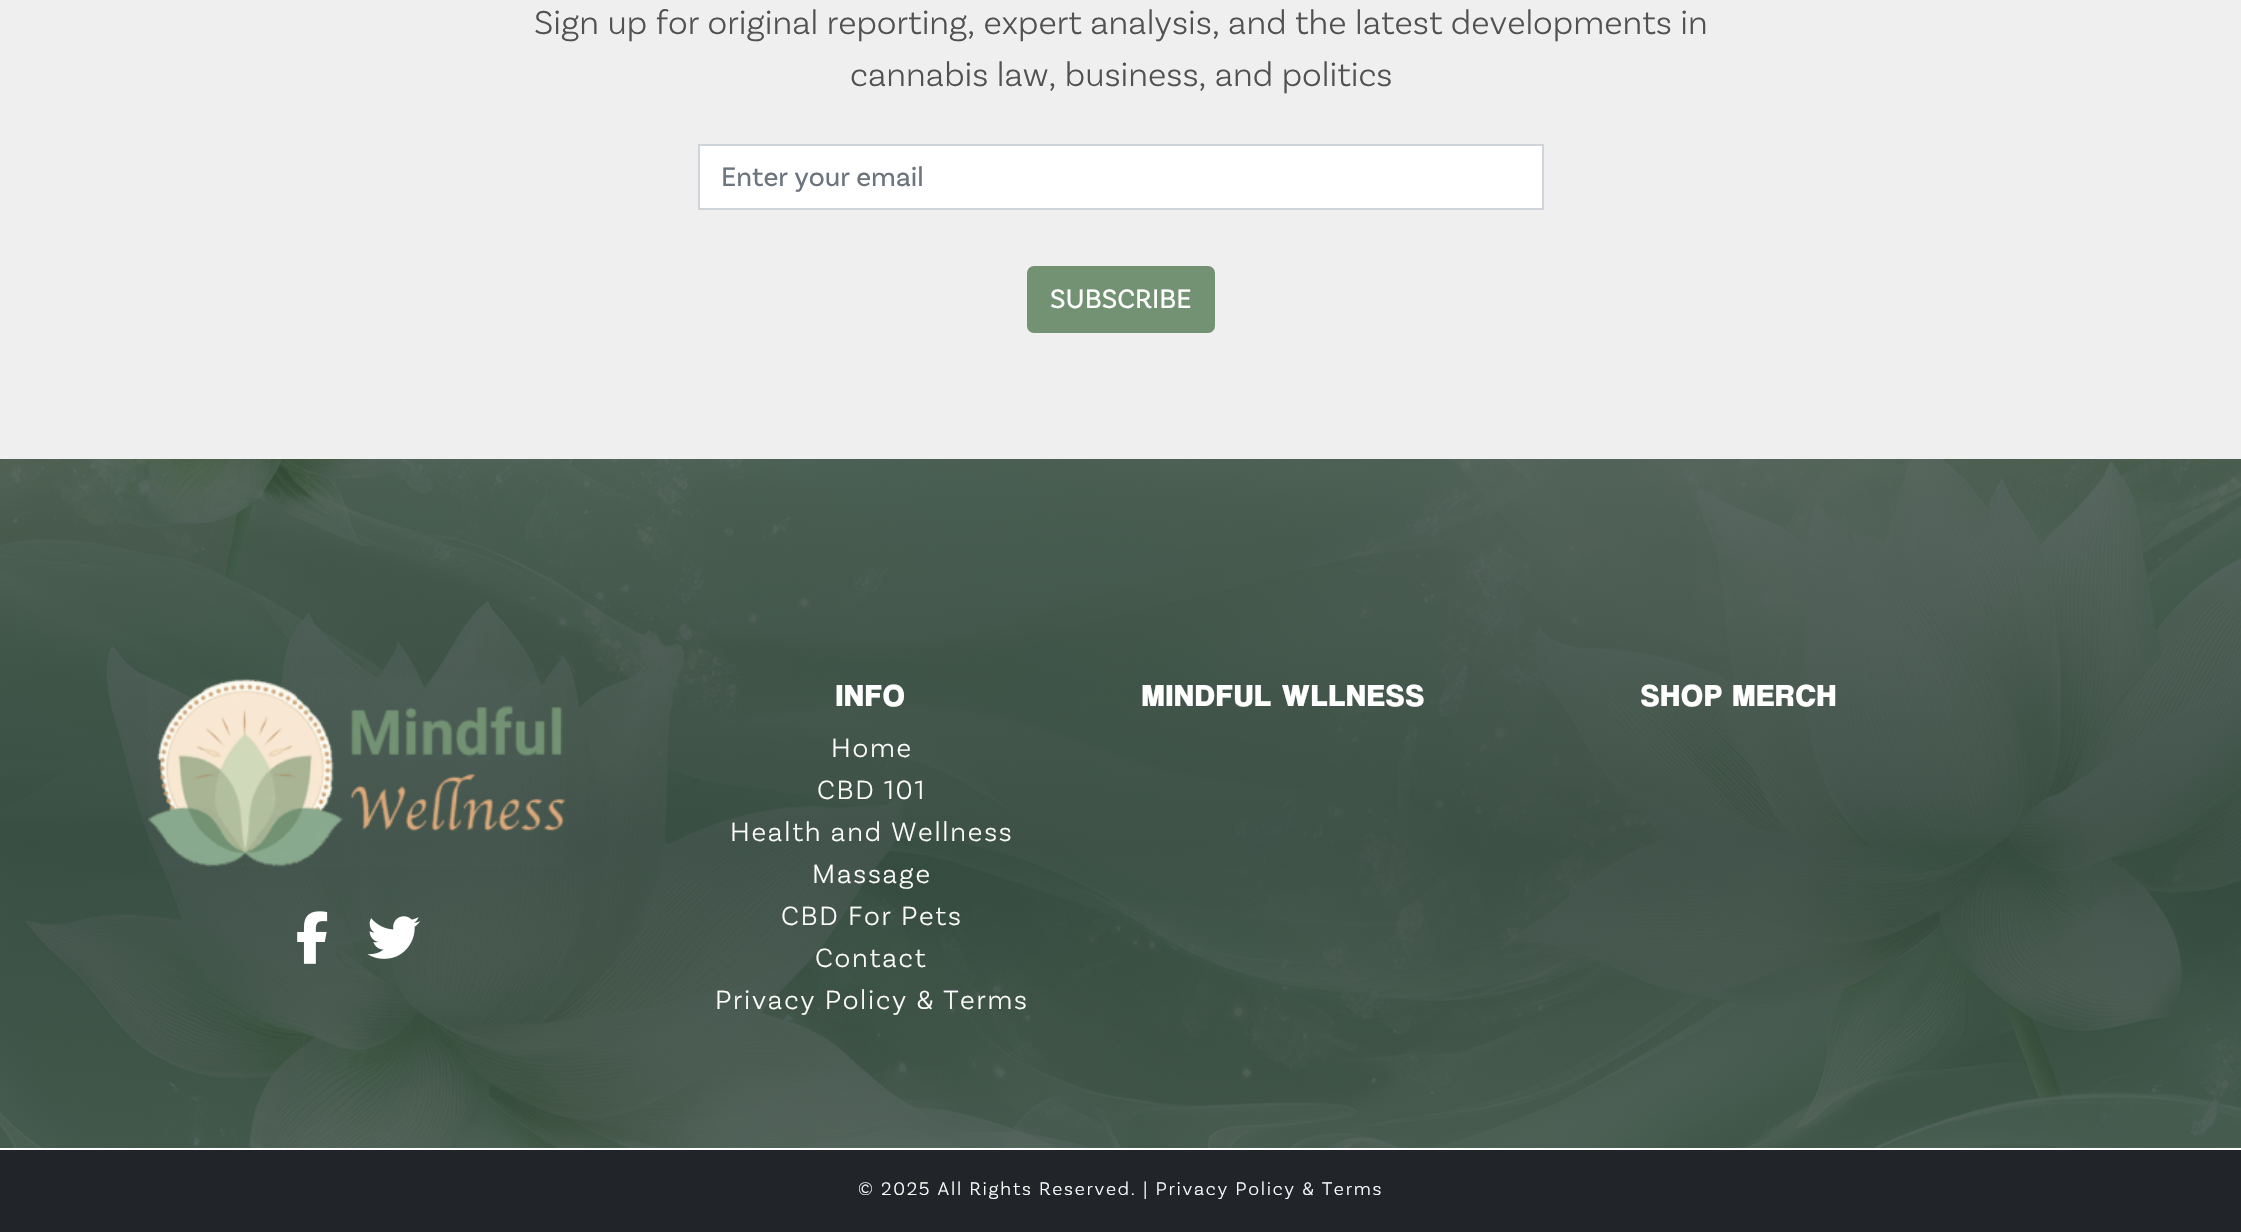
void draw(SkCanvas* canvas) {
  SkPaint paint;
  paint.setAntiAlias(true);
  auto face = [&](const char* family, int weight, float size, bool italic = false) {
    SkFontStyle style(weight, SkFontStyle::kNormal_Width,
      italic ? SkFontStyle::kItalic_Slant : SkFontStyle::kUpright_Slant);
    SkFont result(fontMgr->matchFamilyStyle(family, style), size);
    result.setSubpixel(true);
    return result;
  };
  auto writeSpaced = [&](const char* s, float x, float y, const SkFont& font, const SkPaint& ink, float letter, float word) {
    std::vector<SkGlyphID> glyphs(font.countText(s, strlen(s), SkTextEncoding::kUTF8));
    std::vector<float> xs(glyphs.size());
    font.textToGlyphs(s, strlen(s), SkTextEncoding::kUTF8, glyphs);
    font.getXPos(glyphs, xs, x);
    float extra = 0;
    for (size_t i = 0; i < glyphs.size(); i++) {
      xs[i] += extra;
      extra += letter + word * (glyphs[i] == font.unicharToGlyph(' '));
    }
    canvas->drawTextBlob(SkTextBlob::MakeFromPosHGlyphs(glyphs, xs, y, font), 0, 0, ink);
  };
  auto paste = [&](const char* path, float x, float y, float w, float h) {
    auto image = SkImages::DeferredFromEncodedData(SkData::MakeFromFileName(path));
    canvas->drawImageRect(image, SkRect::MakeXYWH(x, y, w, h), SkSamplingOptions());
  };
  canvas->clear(0xffffffff);
  paint.setColor(0xfff0efef);
  canvas->drawRect(SkRect::MakeXYWH(0, 0, 2241, 459), paint);
  paint.setColor(0xffffffff);
  canvas->drawRect(SkRect::MakeXYWH(699, 145, 844, 64), paint);
  paint.setStroke(true);
  paint.setStrokeWidth(2);
  paint.setColor(0xffced4da);
  canvas->drawRect(SkRect::MakeXYWH(699, 145, 844, 64), paint);
  paint.setStroke(false);
  paint.setColor(0xff729273);
  canvas->drawRoundRect(SkRect::MakeXYWH(1027, 266, 188, 67), 7, 7, paint);
  paste("img/1.png", 0, 459, 2241, 689);
  paste("img/2.png", 148, 678, 418, 189);
  paste("img/3.png", 297, 911, 31, 53);
  paste("img/4.png", 367, 916, 53, 43);
  paint.setColor(0xff212529);
  canvas->drawRect(SkRect::MakeXYWH(0, 1150, 2241, 82), paint);
  auto f0 = face("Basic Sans", 300, 35);
  paint.setColor(0xff515151);
  canvas->drawString("Sign up for original reporting, expert analysis, and the latest developments in", 534, 34, f0, paint);
  canvas->drawString("cannabis law, business, and politics", 850, 86, f0, paint);
  auto f1 = face("Basic Sans", 400, 28);
  paint.setColor(0xff6c757d);
  canvas->drawString("Enter your email", 721, 186, f1, paint);
  paint.setColor(0xffffffff);
  canvas->drawString("SUBSCRIBE", 1050, 308, f1, paint);
  auto f2 = face("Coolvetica", 400, 31.5f);
  writeSpaced("INFO", 836, 706, f2, paint, 1.75f, 0);
  auto f3 = face("Basic Sans", 300, 28);
  {
    const struct { const char* s; float x, y; } items[] = {
      {"Home", 831, 757},
      {"CBD 101", 817, 799},
      {"Health and Wellness", 730, 841},
      {"Massage", 812, 883},
      {"CBD For Pets", 781, 925},
      {"Contact", 815, 967},
      {"Privacy Policy & Terms", 715, 1009},
    };
    for (auto [s, x, y] : items) {
      writeSpaced(s, x, y, f3, paint, 1.75f, 0);
    }
  }
  writeSpaced("MINDFUL WLLNESS", 1142, 706, f2, paint, 1.75f, 0);
  writeSpaced("SHOP MERCH", 1641, 706, f2, paint, 1.75f, 0);
  auto f4 = face("Basic Sans", 300, 19.25f);
  writeSpaced("© 2025 All Rights Reserved. | Privacy Policy & Terms", 858, 1195, f4, paint, 1.75f, 0);
}
